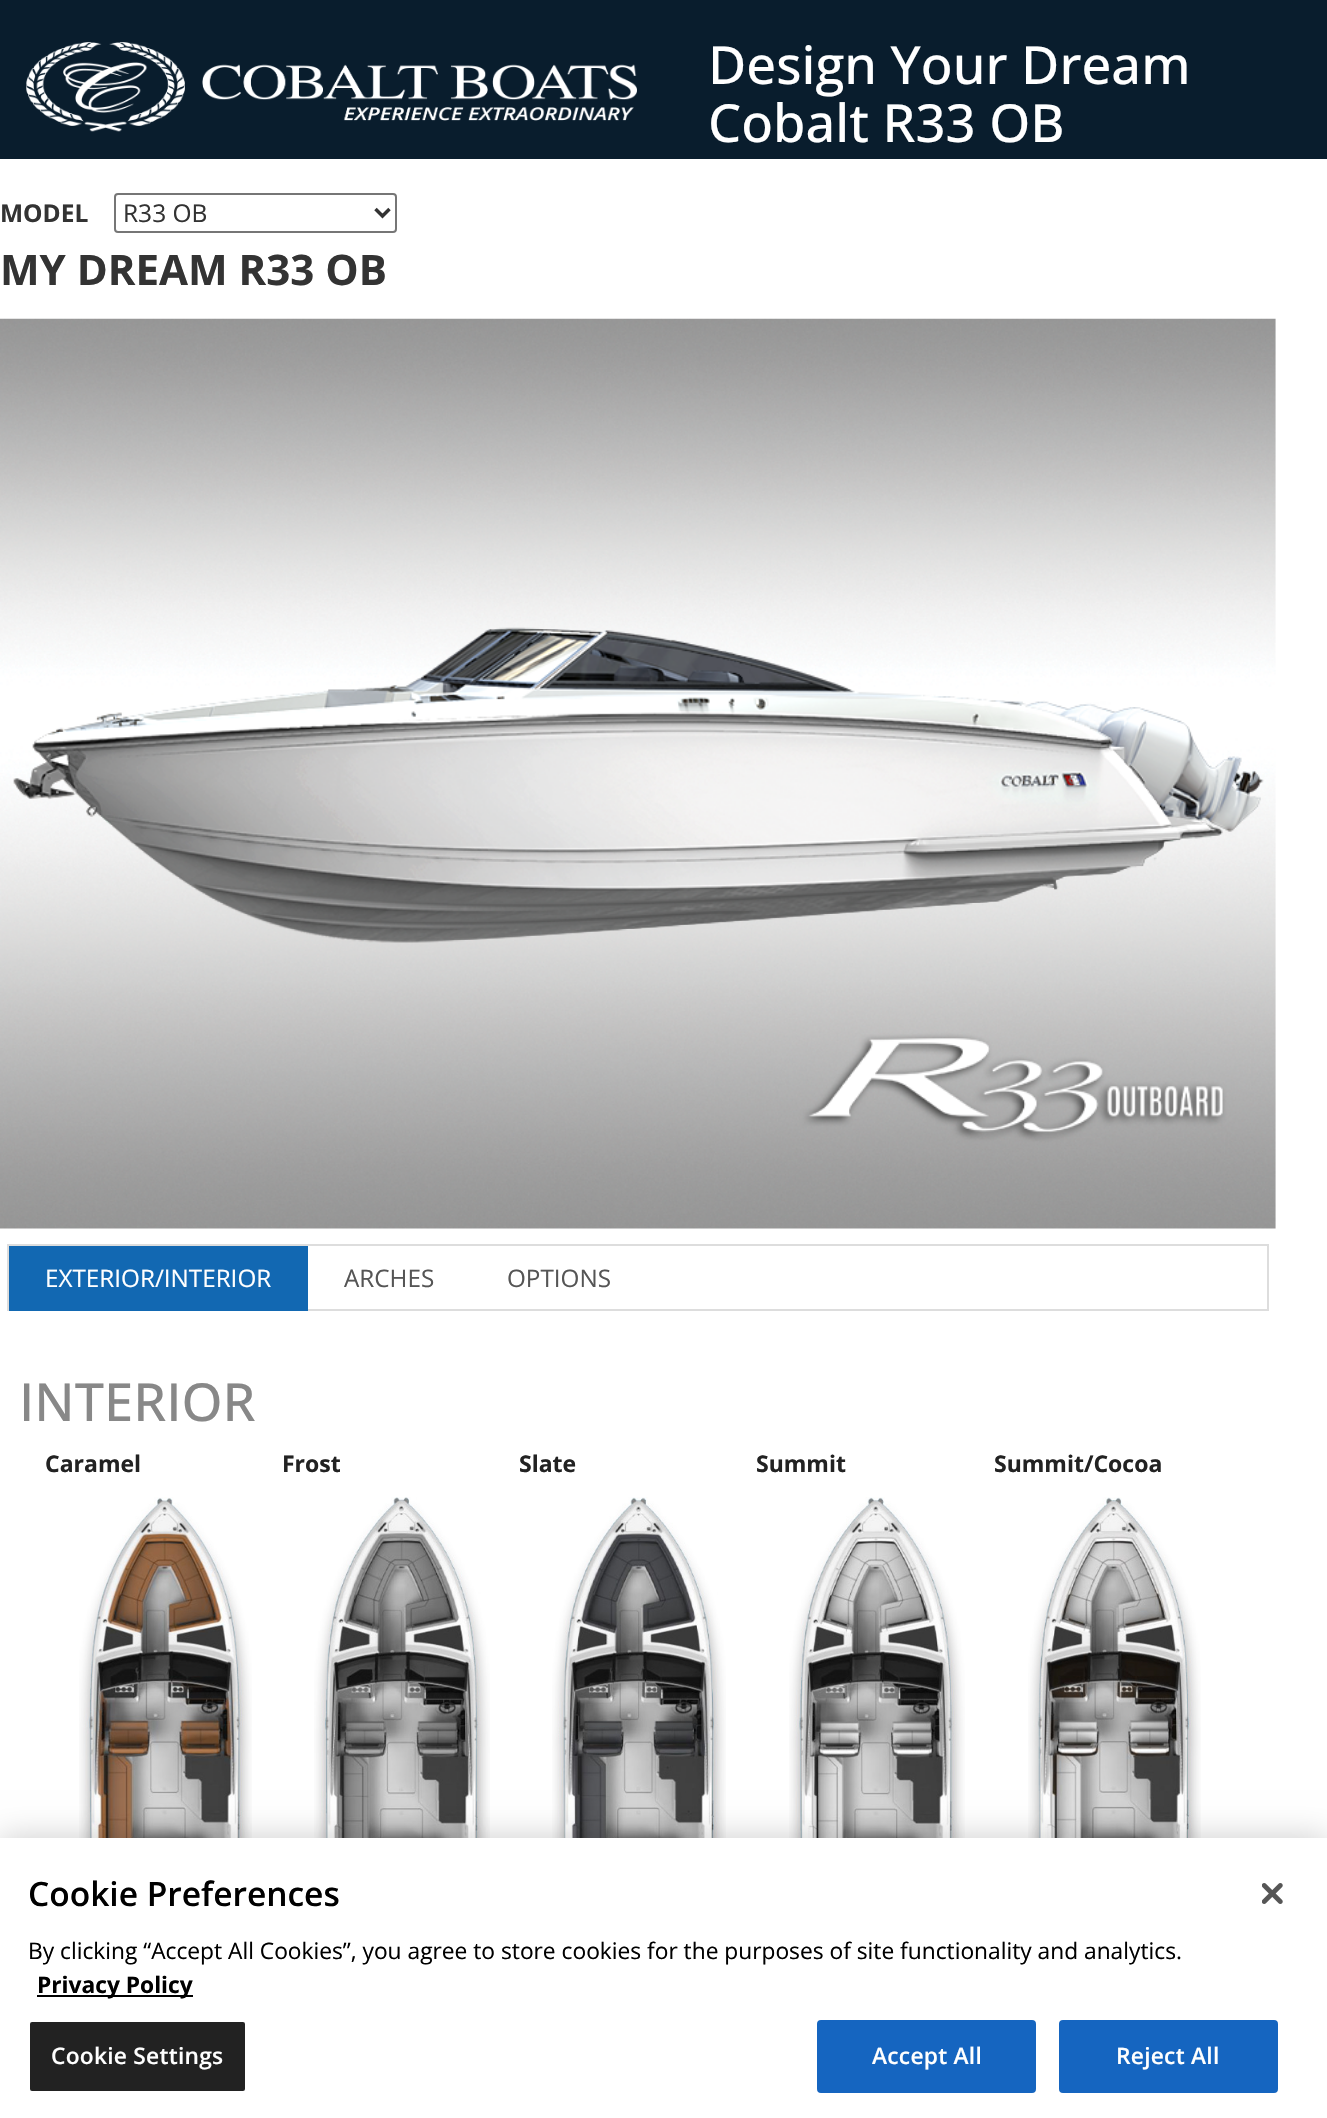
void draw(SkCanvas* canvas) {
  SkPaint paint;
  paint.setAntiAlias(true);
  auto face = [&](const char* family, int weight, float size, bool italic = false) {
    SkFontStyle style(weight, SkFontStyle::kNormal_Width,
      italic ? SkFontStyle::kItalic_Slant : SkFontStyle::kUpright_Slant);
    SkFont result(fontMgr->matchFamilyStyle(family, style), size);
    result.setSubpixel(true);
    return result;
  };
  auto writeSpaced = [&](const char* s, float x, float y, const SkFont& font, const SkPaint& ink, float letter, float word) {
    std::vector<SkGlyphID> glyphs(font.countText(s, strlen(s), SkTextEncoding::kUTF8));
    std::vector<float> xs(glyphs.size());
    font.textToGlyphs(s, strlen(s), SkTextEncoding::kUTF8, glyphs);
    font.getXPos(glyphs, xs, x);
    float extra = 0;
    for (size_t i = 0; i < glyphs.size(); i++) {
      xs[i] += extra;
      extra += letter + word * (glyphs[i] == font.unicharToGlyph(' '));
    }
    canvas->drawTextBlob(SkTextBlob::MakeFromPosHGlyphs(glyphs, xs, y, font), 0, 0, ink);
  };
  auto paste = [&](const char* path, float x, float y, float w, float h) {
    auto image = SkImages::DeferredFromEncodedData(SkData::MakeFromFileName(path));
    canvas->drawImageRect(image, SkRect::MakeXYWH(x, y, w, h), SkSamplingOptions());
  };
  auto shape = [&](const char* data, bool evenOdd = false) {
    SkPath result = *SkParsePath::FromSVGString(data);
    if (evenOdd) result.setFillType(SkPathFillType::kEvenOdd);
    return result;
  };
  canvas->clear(0xffffffff);
  paint.setColor(0xff091d2d);
  canvas->drawRect(SkRect::MakeXYWH(0, 0, 1327, 159), paint);
  paste("img/1.png", 26, 42, 611, 90);
  paint.setStroke(true);
  paint.setStrokeWidth(2);
  paint.setColor(0xff767676);
  canvas->drawRoundRect(SkRect::MakeXYWH(115, 194, 281, 38), 3, 3, paint);
  paint.setStrokeWidth(3.5f);
  paint.setColor(0xff333333);
  canvas->drawPath(shape("M375.5 209L382.5 216L389.5 209"), paint);
  paste("img/2.png", 0, 318, 1276, 911);
  paste("img/3.png", 77, 723, 1095, 128);
  paste("img/4.png", 101, 815, 814, 46);
  paste("img/5.png", 109, 823, 1067, 119);
  paste("img/6.png", 903, 823, 308, 30);
  paint.setStrokeWidth(2);
  paint.setColor(0xffdddddd);
  canvas->drawRect(SkRect::MakeXYWH(8, 1245, 1260, 65), paint);
  paint.setStroke(false);
  paint.setColor(0xff1268b2);
  canvas->drawRect(SkRect::MakeXYWH(9, 1246, 299, 65), paint);
  paste("img/7.png", 79, 1497, 173, 341);
  paste("img/8.png", 314, 1497, 176, 341);
  paste("img/9.png", 552, 1497, 174, 341);
  paste("img/10.png", 789, 1497, 176, 341);
  paste("img/11.png", 1028, 1497, 173, 341);
  paint.setColor(0x33000000);
  paint.setMaskFilter(SkMaskFilter::MakeBlur(kNormal_SkBlurStyle, 16));
  canvas->drawRect(SkRect::MakeXYWH(0, 1838, 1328, 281), paint);
  paint.setMaskFilter(nullptr);
  paint.setColor(0xffffffff);
  canvas->drawRect(SkRect::MakeXYWH(0, 1838, 1327, 280), paint);
  paint.setColor(0xff000000);
  canvas->drawRect(SkRect::MakeXYWH(37, 1995, 156, 2), paint);
  paint.setColor(0xff222222);
  canvas->drawRoundRect(SkRect::MakeXYWH(29, 2021, 217, 71), 3, 3, paint);
  paint.setStroke(true);
  paint.setColor(0xffffffff);
  canvas->drawRoundRect(SkRect::MakeXYWH(29, 2021, 217, 71), 3, 3, paint);
  paint.setStroke(false);
  paint.setColor(0xff1565c0);
  canvas->drawRoundRect(SkRect::MakeXYWH(818, 2021, 217, 71), 3, 3, paint);
  paint.setStroke(true);
  canvas->drawRoundRect(SkRect::MakeXYWH(818, 2021, 217, 71), 3, 3, paint);
  paint.setStroke(false);
  canvas->drawRoundRect(SkRect::MakeXYWH(1060, 2021, 217, 71), 3, 3, paint);
  paint.setStroke(true);
  canvas->drawRoundRect(SkRect::MakeXYWH(1060, 2021, 217, 71), 3, 3, paint);
  paste("img/12.png", 1262, 1883, 21, 21);
  auto f0 = face("Open Sans", 500, 52.5f);
  paint.setStroke(false);
  paint.setColor(0xffffffff);
  canvas->drawString("Design Your Dream", 708, 84, f0, paint);
  canvas->drawString("Cobalt R33 OB", 708, 142, f0, paint);
  auto f1 = face("Open Sans", 700, 24.5f);
  paint.setColor(0xff333333);
  canvas->drawString("MODEL", 0, 222, f1, paint);
  auto f2 = face("Open Sans", 400, 24.5f);
  canvas->drawString("R33 OB", 123, 222, f2, paint);
  auto f3 = face("Open Sans", 700, 42);
  canvas->drawString("MY DREAM R33 OB", 0, 285, f3, paint);
  auto f4 = face("Open Sans", 400, 24.25f);
  paint.setColor(0xffffffff);
  canvas->drawString("EXTERIOR/INTERIOR", 45, 1287, f4, paint);
  paint.setColor(0xff555555);
  canvas->drawString("ARCHES", 344, 1287, f4, paint);
  canvas->drawString("OPTIONS", 507, 1287, f4, paint);
  paint.setColor(0xff888888);
  canvas->drawString("INTERIOR", 19, 1421, f0, paint);
  auto f5 = face("Open Sans", 700, 23);
  paint.setColor(0xff222222);
  {
    const struct { const char* s; float x, y; } items[] = {
      {"Caramel", 45, 1472},
      {"Frost", 282, 1472},
      {"Slate", 519, 1472},
      {"Summit", 756, 1472},
      {"Summit/Cocoa", 994, 1472},
    };
    for (auto [s, x, y] : items) {
      canvas->drawString(s, x, y, f5, paint);
    }
  }
  auto f6 = face("Open Sans", 600, 33.5f);
  paint.setColor(0xff000000);
  canvas->drawString("Cookie Preferences", 28, 1906, f6, paint);
  auto f7 = face("Open Sans", 400, 22.75f);
  canvas->drawString("By clicking “Accept All Cookies”, you agree to store cookies for the purposes of site functionality and analytics.", 28, 1959, f7, paint);
  auto f8 = face("Open Sans", 700, 22.75f);
  canvas->drawString("Privacy Policy", 37, 1993, f8, paint);
  auto f9 = face("Open Sans", 600, 22.75f);
  paint.setColor(0xffffffff);
  {
    const struct { const char* s; float x, y; } items[] = {
      {"Cookie Settings", 51, 2064},
      {"Accept All", 872, 2064},
      {"Reject All", 1116, 2064},
    };
    for (auto [s, x, y] : items) {
      writeSpaced(s, x, y, f9, paint, 0.25f, 0);
    }
  }
}
